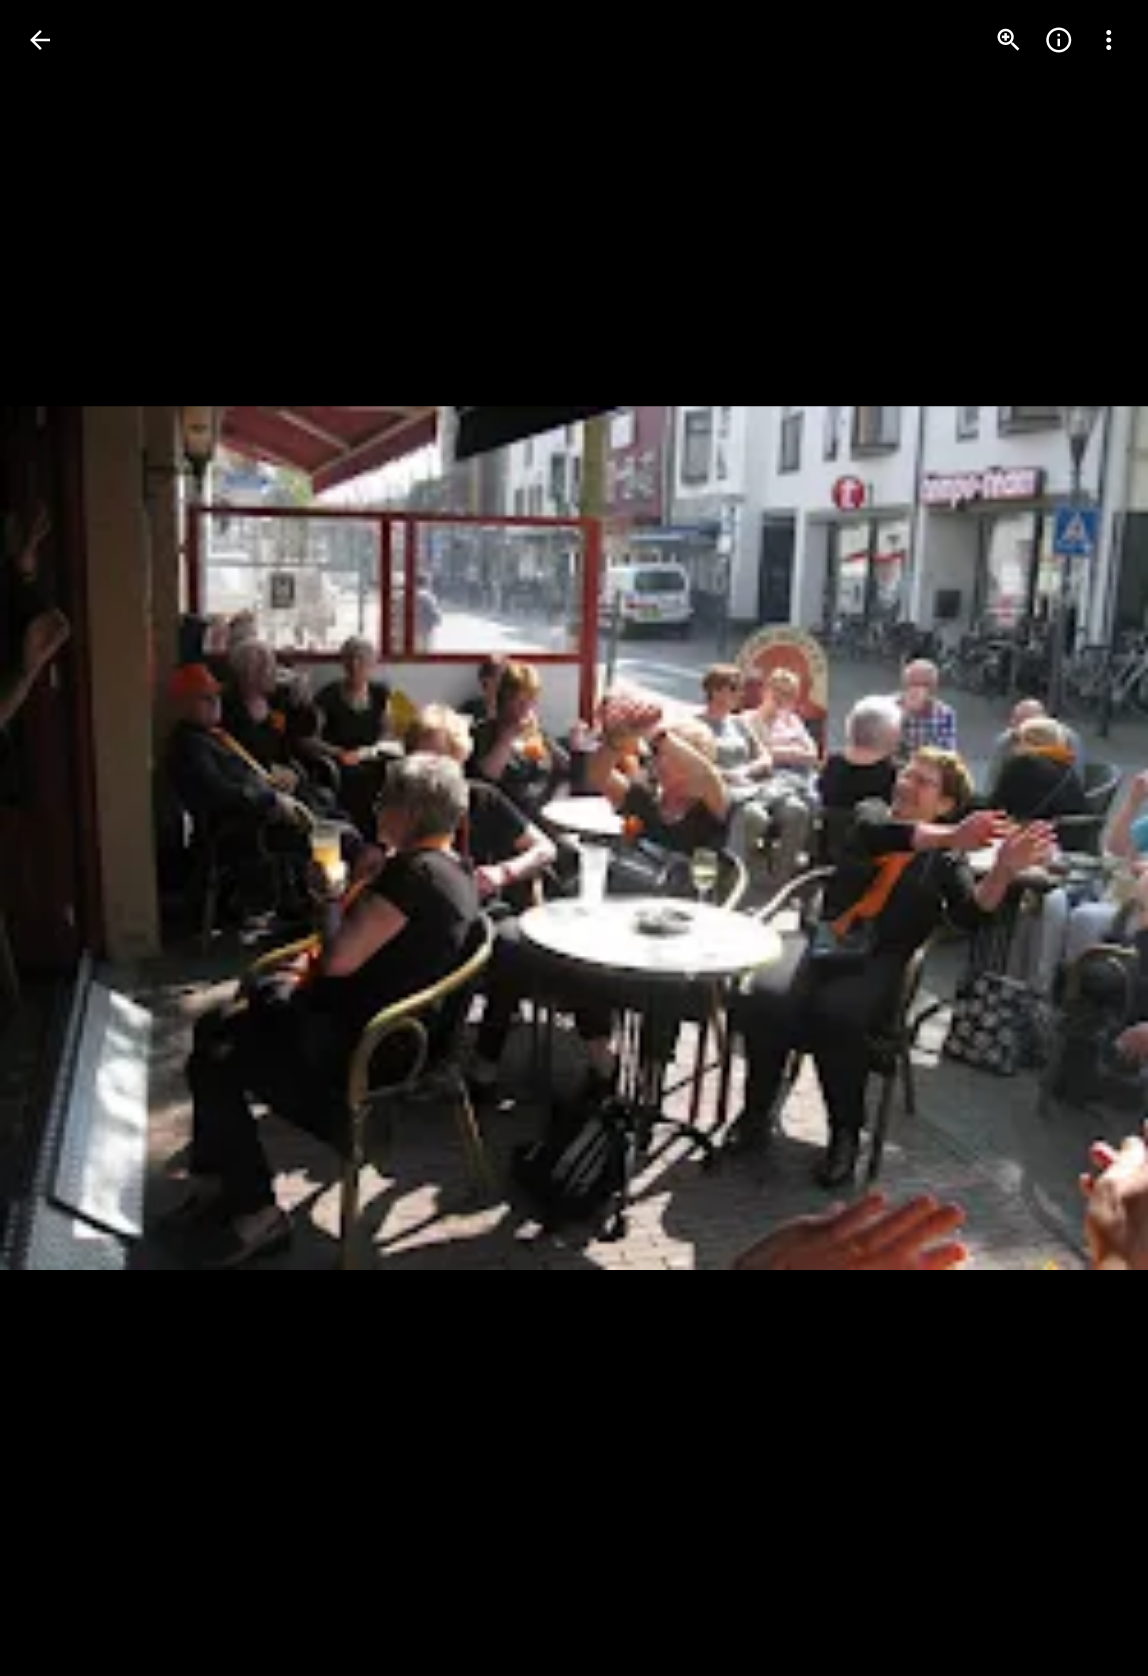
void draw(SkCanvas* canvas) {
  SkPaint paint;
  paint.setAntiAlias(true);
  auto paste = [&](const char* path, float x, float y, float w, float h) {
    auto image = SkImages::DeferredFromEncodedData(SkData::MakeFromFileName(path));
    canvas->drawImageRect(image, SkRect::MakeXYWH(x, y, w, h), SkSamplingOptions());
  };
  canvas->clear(0xff000000);
  paste("img/1.png", 30, 30, 20, 20);
  paste("img/2.png", 997, 28, 23, 23);
  paste("img/3.png", 1046, 27, 26, 26);
  paste("img/4.png", 1106, 30, 6, 20);
  paste("img/5.png", 0, 406, 1148, 864);
}
